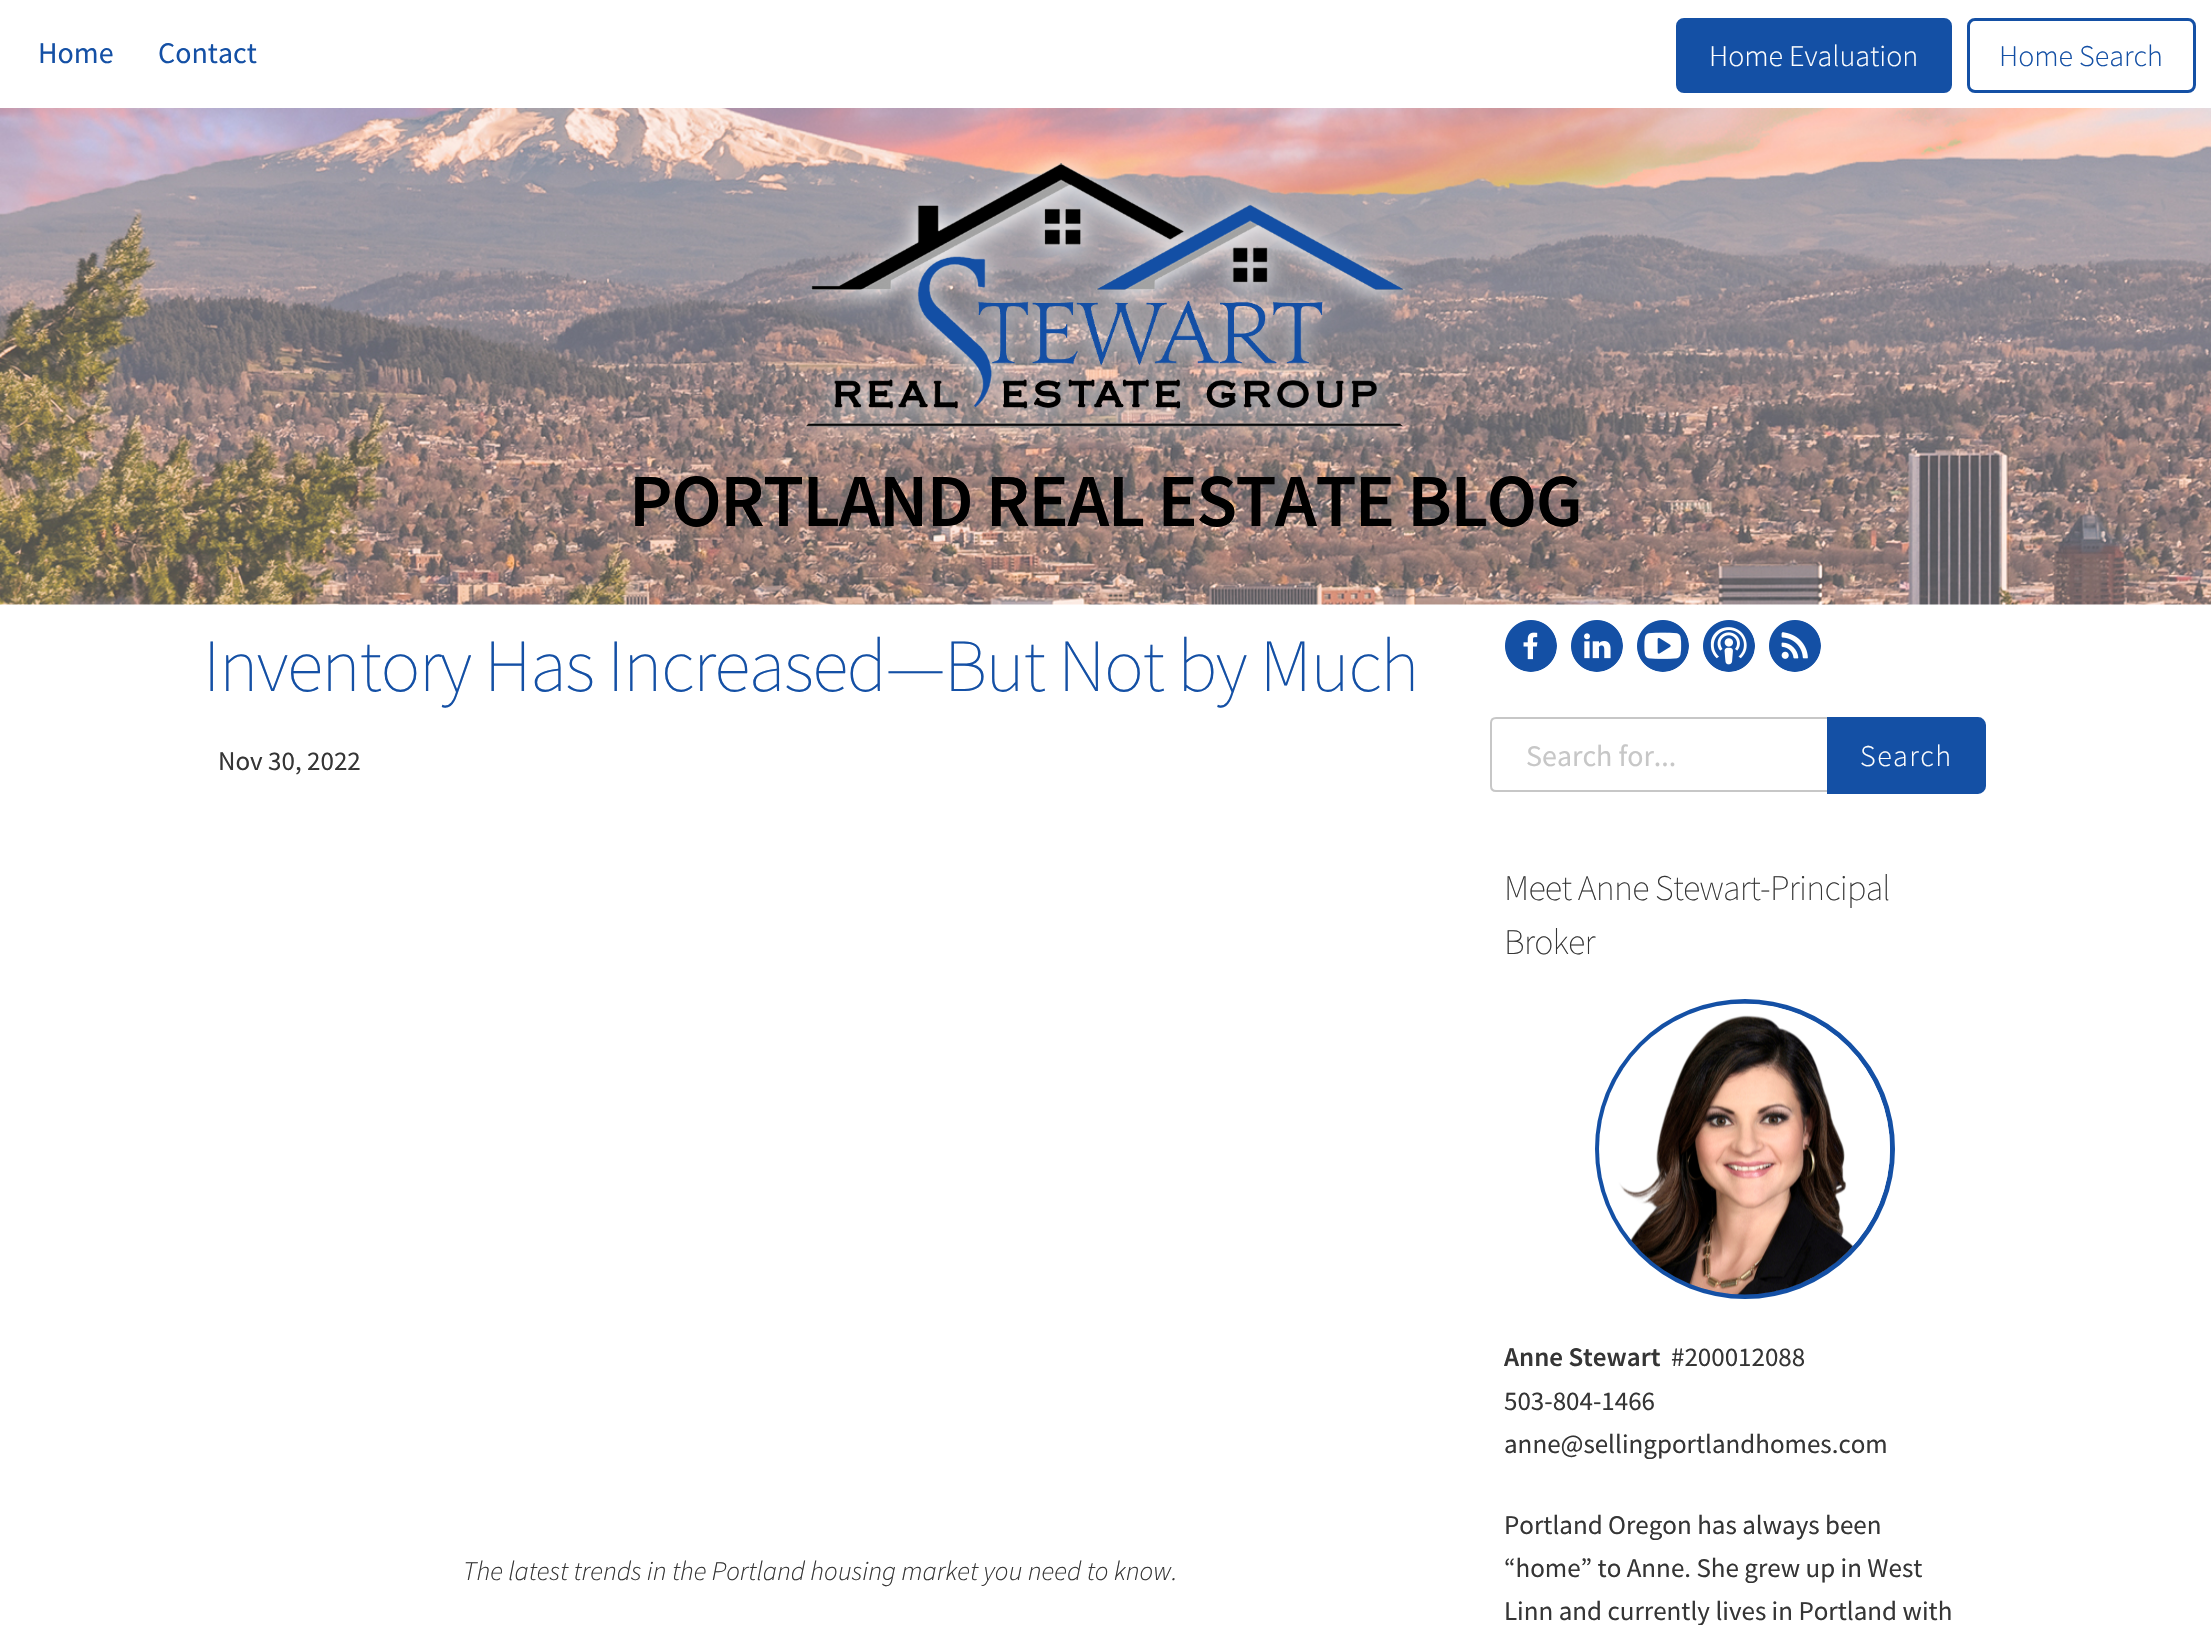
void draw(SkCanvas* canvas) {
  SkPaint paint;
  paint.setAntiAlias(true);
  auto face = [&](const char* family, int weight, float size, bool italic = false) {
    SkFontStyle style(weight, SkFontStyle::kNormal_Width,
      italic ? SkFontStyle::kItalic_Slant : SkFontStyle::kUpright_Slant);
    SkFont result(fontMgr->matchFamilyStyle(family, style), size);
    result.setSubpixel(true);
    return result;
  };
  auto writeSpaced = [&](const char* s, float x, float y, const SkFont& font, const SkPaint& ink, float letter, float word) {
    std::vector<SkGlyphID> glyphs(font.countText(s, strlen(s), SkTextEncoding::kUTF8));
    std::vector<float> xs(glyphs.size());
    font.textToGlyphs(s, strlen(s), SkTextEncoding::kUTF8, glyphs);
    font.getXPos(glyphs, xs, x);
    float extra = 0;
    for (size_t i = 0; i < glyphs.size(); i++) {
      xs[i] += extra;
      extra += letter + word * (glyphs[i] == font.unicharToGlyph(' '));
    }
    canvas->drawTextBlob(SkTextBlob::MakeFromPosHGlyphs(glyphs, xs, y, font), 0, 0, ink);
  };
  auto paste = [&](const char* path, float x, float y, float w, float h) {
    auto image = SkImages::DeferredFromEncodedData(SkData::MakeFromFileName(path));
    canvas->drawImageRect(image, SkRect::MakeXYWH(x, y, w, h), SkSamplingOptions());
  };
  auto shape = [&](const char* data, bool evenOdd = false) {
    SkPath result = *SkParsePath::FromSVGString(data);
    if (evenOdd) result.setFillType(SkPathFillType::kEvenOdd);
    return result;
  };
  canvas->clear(0xffffffff);
  paint.setColor(0xff1450a5);
  canvas->drawRoundRect(SkRect::MakeXYWH(1677.5f, 19.5f, 273, 72), 6.5f, 6.5f, paint);
  paint.setStroke(true);
  paint.setStrokeWidth(3);
  canvas->drawRoundRect(SkRect::MakeXYWH(1677.5f, 19.5f, 273, 72), 6.5f, 6.5f, paint);
  canvas->drawRoundRect(SkRect::MakeXYWH(1968.5f, 19.5f, 226, 72), 6.5f, 6.5f, paint);
  paste("img/1.png", 0, 108, 2211, 497);
  paste("img/2.png", 800, 152, 611, 296);
  paste("img/3.png", 1505, 620, 52, 52);
  paste("img/4.png", 1571, 620, 52, 52);
  paste("img/5.png", 1637, 620, 52, 52);
  paste("img/6.png", 1703, 620, 52, 52);
  paste("img/7.png", 1769, 620, 52, 52);
  paint.setStrokeWidth(2);
  paint.setColor(0xffc7c7c7);
  canvas->drawPath(shape("M1496 718H1828V791H1496C1493 791 1491 789 1491 786V723C1491 720 1493 718 1496 718Z"), paint);
  paint.setStroke(false);
  paint.setColor(0xff1450a5);
  canvas->drawPath(shape("M1828.5 718.5H1978C1981.5 718.5 1984.5 721.5 1984.5 725V786C1984.5 789.5 1981.5 792.5 1978 792.5H1828.5Z"), paint);
  paint.setStroke(true);
  paint.setStrokeWidth(3);
  canvas->drawPath(shape("M1828.5 718.5H1978C1981.5 718.5 1984.5 721.5 1984.5 725V786C1984.5 789.5 1981.5 792.5 1978 792.5H1828.5Z"), paint);
  paint.setStrokeWidth(5);
  canvas->drawCircle(1745, 1149, 147.5f, paint);
  paste("img/8.png", 1599, 1003, 291, 292);
  auto f0 = face("Source Sans Pro", 400, 30);
  paint.setStroke(false);
  canvas->drawString("Home", 38, 63, f0, paint);
  canvas->drawString("Contact", 158, 63, f0, paint);
  auto f1 = face("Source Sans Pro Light", 300, 30);
  paint.setColor(0xffffffff);
  canvas->drawString("Home Evaluation", 1709, 66, f1, paint);
  paint.setColor(0xff1450a5);
  canvas->drawString("Home Search", 1999, 66, f1, paint);
  auto f2 = face("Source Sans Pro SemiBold", 600, 75);
  paint.setColor(0xff000000);
  writeSpaced("PORTLAND REAL ESTATE BLOG", 629, 526, f2, paint, -1.5f, 0);
  auto f3 = face("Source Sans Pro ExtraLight", 200, 75);
  paint.setColor(0xff1450a5);
  writeSpaced("Inventory Has Increased—But Not by Much", 203, 691, f3, paint, -1.5f, 0);
  auto f4 = face("Source Sans Pro", 400, 27);
  paint.setColor(0xff353535);
  canvas->drawString("Nov 30, 2022", 218, 770, f4, paint);
  auto f5 = face("Source Sans Pro Light", 300, 27, true);
  canvas->drawString("The latest trends in the Portland housing market you need to know.", 463, 1580, f5, paint);
  paint.setColor(0xffc7c7c7);
  canvas->drawString("Search for...", 1526, 766, f0, paint);
  paint.setColor(0xffffffff);
  writeSpaced("Search", 1860, 766, f1, paint, 1.5f, 0);
  auto f6 = face("Source Sans Pro ExtraLight", 200, 36);
  paint.setColor(0xff353535);
  writeSpaced("Meet Anne Stewart-Principal", 1504, 900, f6, paint, -0.75f, 0);
  writeSpaced("Broker", 1504, 954, f6, paint, -0.75f, 0);
  auto f7 = face("Source Sans Pro SemiBold", 600, 27);
  canvas->drawString("Anne Stewart", 1504, 1366, f7, paint);
  {
    const struct { const char* s; float x, y; } items[] = {
      {"#200012088", 1671, 1366},
      {"503-804-1466", 1504, 1410},
      {"anne@sellingportlandhomes.com", 1504, 1453},
      {"Portland Oregon has always been", 1504, 1534},
      {"“home” to Anne. She grew up in West", 1504, 1577},
      {"Linn and currently lives in Portland with", 1504, 1620},
    };
    for (auto [s, x, y] : items) {
      canvas->drawString(s, x, y, f4, paint);
    }
  }
}
